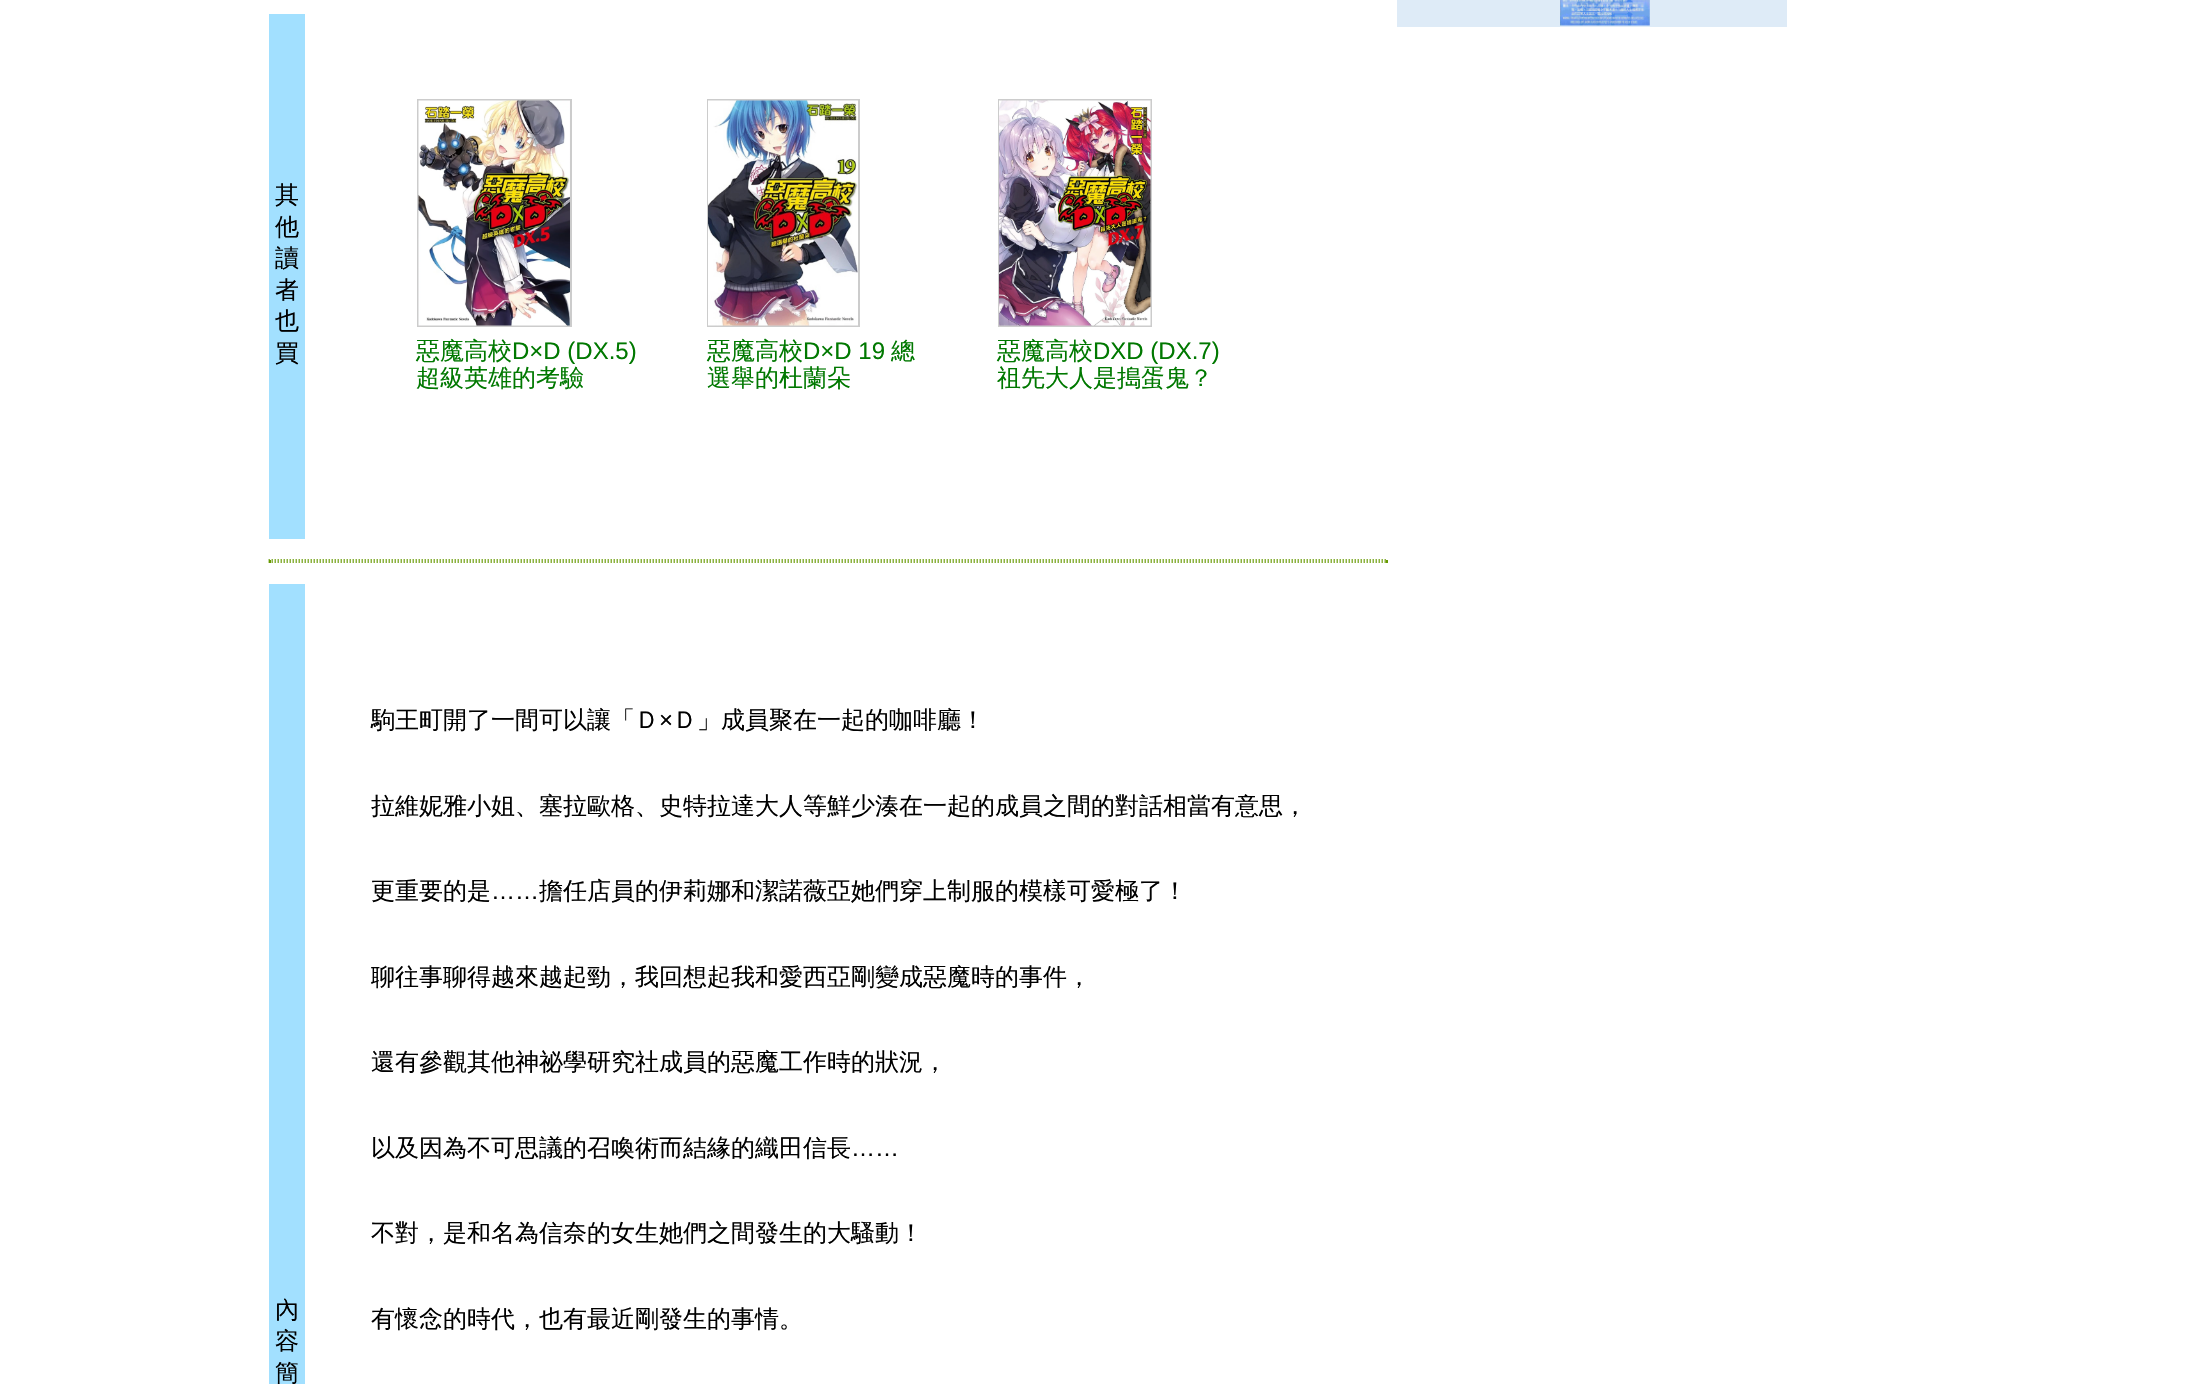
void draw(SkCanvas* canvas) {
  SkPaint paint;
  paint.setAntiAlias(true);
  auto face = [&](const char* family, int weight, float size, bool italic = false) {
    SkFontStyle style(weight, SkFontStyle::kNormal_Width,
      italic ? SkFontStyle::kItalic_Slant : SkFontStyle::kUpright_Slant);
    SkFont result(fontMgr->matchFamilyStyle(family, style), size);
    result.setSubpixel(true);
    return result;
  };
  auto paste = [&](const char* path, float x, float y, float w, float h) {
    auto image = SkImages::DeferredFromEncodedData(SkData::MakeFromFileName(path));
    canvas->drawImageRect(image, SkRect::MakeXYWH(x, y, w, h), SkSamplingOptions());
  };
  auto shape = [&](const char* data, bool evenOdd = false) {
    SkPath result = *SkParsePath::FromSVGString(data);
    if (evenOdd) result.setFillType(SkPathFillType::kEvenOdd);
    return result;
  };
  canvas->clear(0xffffffff);
  paint.setColor(0xffdeebf7);
  canvas->drawRect(SkRect::MakeXYWH(1397, 0, 390, 27), paint);
  paste("img/1.png", 1560, 0, 90, 26);
  paint.setColor(0xffa2e0ff);
  canvas->drawRect(SkRect::MakeXYWH(269, 14, 36, 525), paint);
  paint.setStroke(true);
  paint.setStrokeWidth(2);
  paint.setColor(0xffcccccc);
  canvas->drawRect(SkRect::MakeXYWH(418, 100, 153, 226), paint);
  paste("img/2.png", 418, 100, 152, 226);
  canvas->drawRect(SkRect::MakeXYWH(708, 100, 151, 226), paint);
  paste("img/3.png", 708, 100, 150, 226);
  canvas->drawRect(SkRect::MakeXYWH(999, 100, 152, 226), paint);
  paste("img/4.png", 999, 100, 152, 226);
  paint.setStrokeWidth(1.5f);
  paint.setColor(0xff669900);
  paint.setPathEffect(SkDashPathEffect::Make({{1.5f, 1.5f}}, 0));
  canvas->drawPath(shape("M268.5 560H1387.5"), paint);
  paint.setPathEffect(nullptr);
  paint.setStroke(false);
  canvas->drawRect(SkRect::MakeXYWH(1386, 560, 2, 3), paint);
  paint.setStroke(true);
  paint.setPathEffect(SkDashPathEffect::Make({{1.5f, 1.5f}}, 0));
  canvas->drawPath(shape("M268.5 562H1387.5"), paint);
  paint.setPathEffect(nullptr);
  paint.setStroke(false);
  canvas->drawRect(SkRect::MakeXYWH(269, 560, 2, 3), paint);
  paint.setColor(0xffa2e0ff);
  canvas->drawRect(SkRect::MakeXYWH(269, 584, 36, 800), paint);
  auto f0 = face("WenQuanYi Zen Hei", 500, 24);
  paint.setColor(0xff000000);
  {
    const struct { const char* s; float x, y; } items[] = {
      {"其", 275, 203},
      {"他", 275, 235},
      {"讀", 275, 266},
      {"者", 275, 298},
      {"也", 275, 329},
      {"買", 275, 361},
    };
    for (auto [s, x, y] : items) {
      canvas->drawString(s, x, y, f0, paint);
    }
  }
  paint.setColor(0xff007800);
  canvas->drawString("惡魔高校", 416, 359, f0, paint);
  auto f1 = face("Liberation Sans", 400, 24);
  canvas->drawString("D×D (DX.5)", 512, 359, f1, paint);
  canvas->drawString("超級英雄的考驗", 416, 386, f0, paint);
  canvas->drawString("惡魔高校", 707, 359, f0, paint);
  canvas->drawString("D×D 19", 803, 359, f1, paint);
  {
    const struct { const char* s; float x, y; } items[] = {
      {"總", 891, 359},
      {"選舉的杜蘭朵", 707, 386},
      {"惡魔高校", 997, 359},
    };
    for (auto [s, x, y] : items) {
      canvas->drawString(s, x, y, f0, paint);
    }
  }
  canvas->drawString("DXD (DX.7)", 1093, 359, f1, paint);
  canvas->drawString("祖先大人是搗蛋鬼？", 997, 386, f0, paint);
  paint.setColor(0xff000000);
  canvas->drawString("駒王町開了一間可以讓「Ｄ", 371, 728, f0, paint);
  canvas->drawString("×", 659, 728, f1, paint);
  {
    const struct { const char* s; float x, y; } items[] = {
      {"Ｄ」成員聚在一起的咖啡廳！", 673, 728},
      {"拉維妮雅小姐、塞拉歐格、史特拉達大人等鮮少湊在一起的成員之間的對話相當有意思，", 371, 814},
      {"更重要的是", 371, 899},
    };
    for (auto [s, x, y] : items) {
      canvas->drawString(s, x, y, f0, paint);
    }
  }
  canvas->drawString("……", 491, 899, f1, paint);
  {
    const struct { const char* s; float x, y; } items[] = {
      {"擔任店員的伊莉娜和潔諾薇亞她們穿上制服的模樣可愛極了！", 539, 899},
      {"聊往事聊得越來越起勁，我回想起我和愛西亞剛變成惡魔時的事件，", 371, 985},
      {"還有參觀其他神祕學研究社成員的惡魔工作時的狀況，", 371, 1070},
      {"以及因為不可思議的召喚術而結緣的織田信長", 371, 1156},
    };
    for (auto [s, x, y] : items) {
      canvas->drawString(s, x, y, f0, paint);
    }
  }
  canvas->drawString("……", 851, 1156, f1, paint);
  {
    const struct { const char* s; float x, y; } items[] = {
      {"不對，是和名為信奈的女生她們之間發生的大騷動！", 371, 1241},
      {"有懷念的時代，也有最近剛發生的事情。", 371, 1327},
      {"內", 275, 1318},
      {"容", 275, 1349},
      {"簡", 275, 1381},
    };
    for (auto [s, x, y] : items) {
      canvas->drawString(s, x, y, f0, paint);
    }
  }
}
